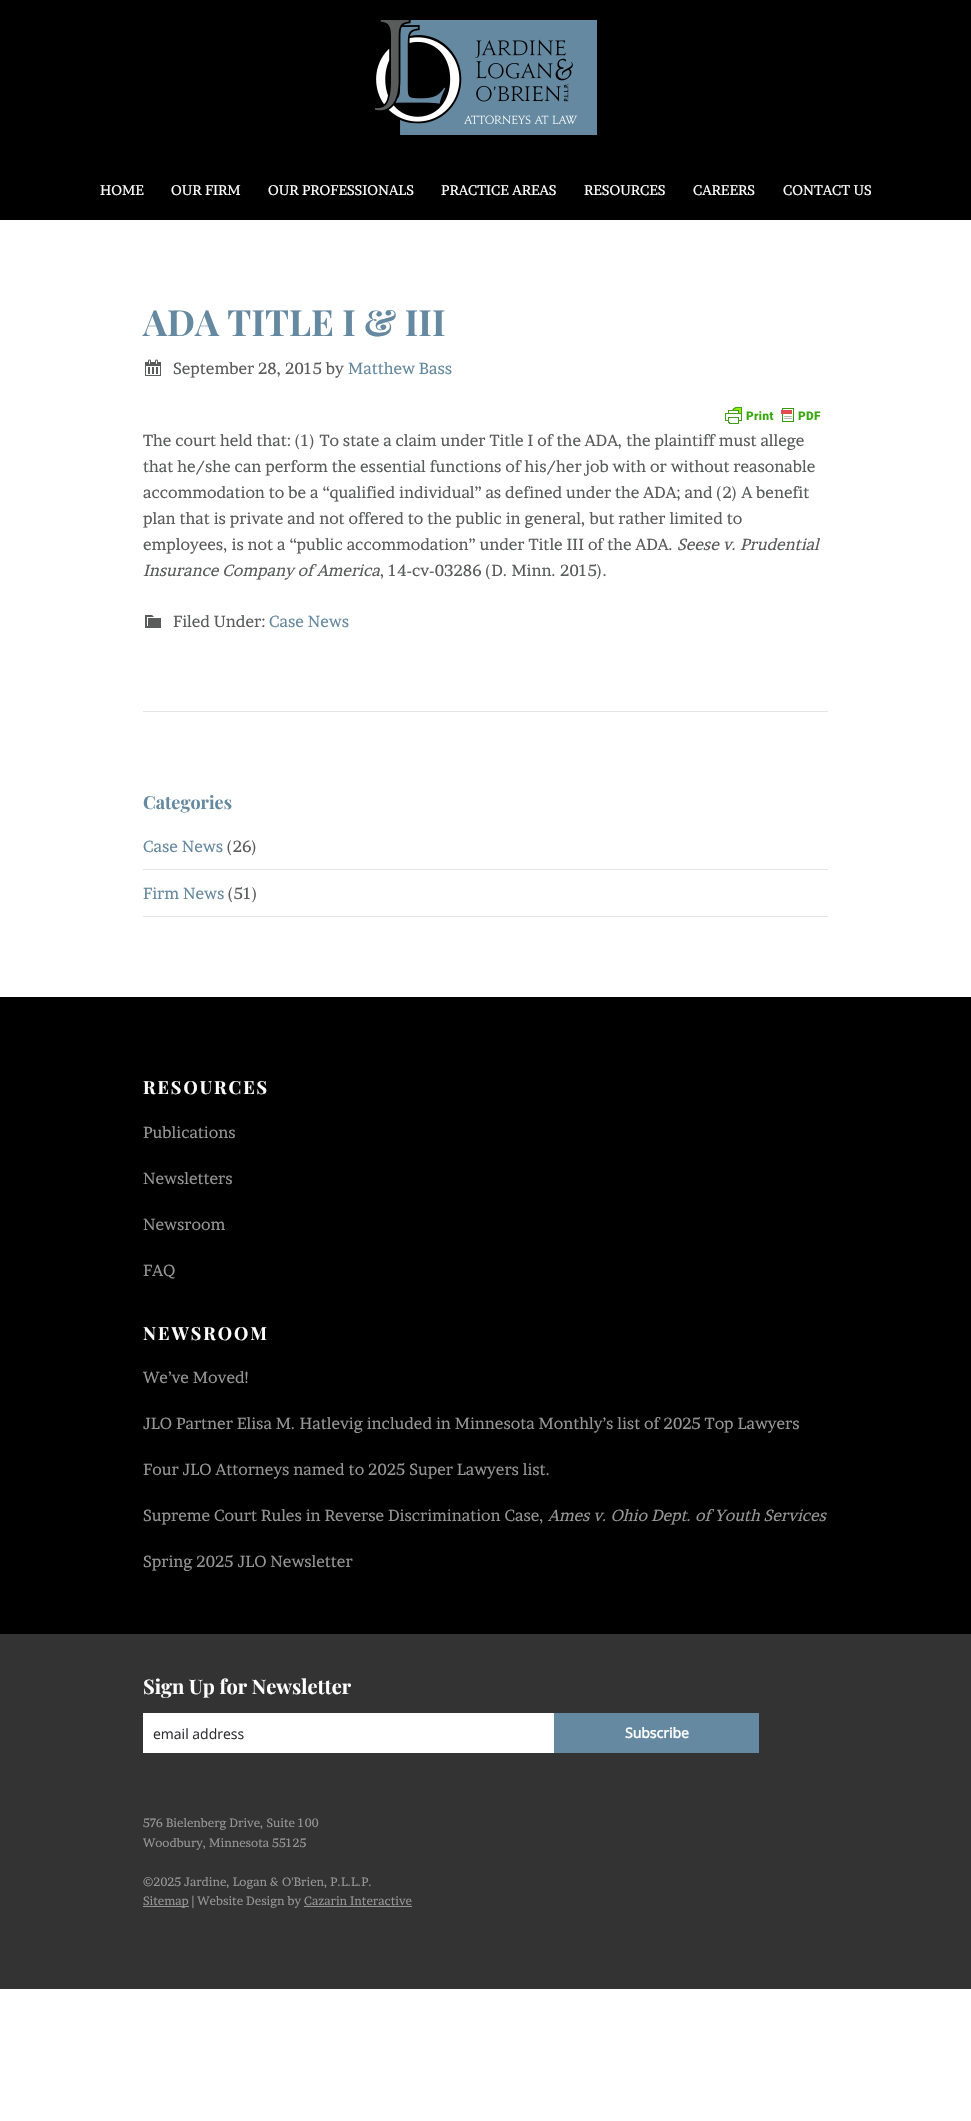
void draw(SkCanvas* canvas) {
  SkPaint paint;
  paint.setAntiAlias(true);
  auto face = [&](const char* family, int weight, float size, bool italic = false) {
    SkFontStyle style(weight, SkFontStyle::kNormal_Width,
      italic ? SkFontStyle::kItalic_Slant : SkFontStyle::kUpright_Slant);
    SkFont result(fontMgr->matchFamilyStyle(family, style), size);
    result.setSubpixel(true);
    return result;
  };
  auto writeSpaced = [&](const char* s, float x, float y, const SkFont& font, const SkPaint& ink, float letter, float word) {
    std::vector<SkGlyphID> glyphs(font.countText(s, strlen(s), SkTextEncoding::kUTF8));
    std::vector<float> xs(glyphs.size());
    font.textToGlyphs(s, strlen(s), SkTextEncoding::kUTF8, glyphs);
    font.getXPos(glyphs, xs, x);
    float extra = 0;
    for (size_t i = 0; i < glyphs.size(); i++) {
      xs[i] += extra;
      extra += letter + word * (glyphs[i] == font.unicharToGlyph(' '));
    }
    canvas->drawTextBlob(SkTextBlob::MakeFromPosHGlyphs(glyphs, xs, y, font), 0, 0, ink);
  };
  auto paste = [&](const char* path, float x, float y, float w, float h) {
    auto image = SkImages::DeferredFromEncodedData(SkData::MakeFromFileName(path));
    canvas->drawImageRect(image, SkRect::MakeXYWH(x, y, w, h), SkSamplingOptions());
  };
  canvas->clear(0xffffffff);
  paint.setColor(0xff000000);
  canvas->drawRect(SkRect::MakeXYWH(0, 0, 971, 220), paint);
  paste("img/1.png", 375, 20, 222, 115);
  paint.setColor(0xffe5e5e5);
  canvas->drawRect(SkRect::MakeXYWH(143, 711, 685, 1), paint);
  paste("img/2.png", 145, 359, 16, 17);
  paste("img/3.png", 725, 407, 96, 17);
  paste("img/4.png", 145, 615, 16, 13);
  {
    const struct { float x, y, w, h; SkColor color; } items[] = {
      {143, 869, 685, 1, 0xffe5e5e5},
      {143, 916, 685, 1, 0xffe5e5e5},
      {0, 997, 971, 637, 0xff000000},
      {0, 1634, 971, 355, 0xff333333},
      {143, 1713, 411, 40, 0xffffffff},
      {554, 1713, 205, 40, 0xff6589a0},
      {143, 1906, 46, 1, 0xff959595},
      {304, 1906, 108, 1, 0xff959595},
    };
    for (auto [x, y, w, h, color] : items) {
      paint.setColor(color);
      canvas->drawRect(SkRect::MakeXYWH(x, y, w, h), paint);
    }
  }
  auto f0 = face("Brawler", 400, 14);
  paint.setColor(0xffffffff);
  {
    const struct { const char* s; float x, y; } items[] = {
      {"HOME", 100, 195},
      {"OUR FIRM", 171, 195},
      {"OUR PROFESSIONALS", 268, 195},
      {"PRACTICE AREAS", 441, 195},
      {"RESOURCES", 584, 195},
      {"CAREERS", 693, 195},
      {"CONTACT US", 783, 195},
    };
    for (auto [s, x, y] : items) {
      canvas->drawString(s, x, y, f0, paint);
    }
  }
  auto f1 = face("Playfair Display", 700, 36);
  paint.setColor(0xff6589a0);
  canvas->drawString("ADA TITLE I & III", 143, 336, f1, paint);
  auto f2 = face("Brawler", 400, 16);
  paint.setColor(0xff5a5b5b);
  canvas->drawString("September 28, 2015 by", 173, 374, f2, paint);
  paint.setColor(0xff6589a0);
  canvas->drawString("Matthew Bass", 348, 374, f2, paint);
  paint.setColor(0xff5a5b5b);
  {
    const struct { const char* s; float x, y; } items[] = {
      {"The court held that: (1) To state a claim under Title I of the ADA, the plaintiff must allege", 143, 446},
      {"that he/she can perform the essential functions of his/her job with or without reasonable", 143, 472},
      {"accommodation to be a “qualified individual” as defined under the ADA; and (2) A benefit", 143, 498},
      {"plan that is private and not offered to the public in general, but rather limited to", 143, 524},
      {"employees, is not a “public accommodation” under Title III of the ADA.", 143, 550},
    };
    for (auto [s, x, y] : items) {
      canvas->drawString(s, x, y, f2, paint);
    }
  }
  auto f3 = face("Brawler", 400, 16, true);
  canvas->drawString("Seese v. Prudential", 677, 550, f3, paint);
  canvas->drawString("Insurance Company of America", 143, 576, f3, paint);
  canvas->drawString(", 14-cv-03286 (D. Minn. 2015).", 380, 576, f2, paint);
  canvas->drawString("Filed Under:", 173, 627, f2, paint);
  paint.setColor(0xff6589a0);
  canvas->drawString("Case News", 269, 627, f2, paint);
  auto f4 = face("Playfair Display", 700, 18);
  canvas->drawString("Categories", 143, 809, f4, paint);
  canvas->drawString("Case News", 143, 852, f2, paint);
  paint.setColor(0xff5a5b5b);
  canvas->drawString("(26)", 227, 852, f2, paint);
  paint.setColor(0xff6589a0);
  canvas->drawString("Firm News", 143, 899, f2, paint);
  paint.setColor(0xff5a5b5b);
  canvas->drawString("(51)", 228, 899, f2, paint);
  paint.setColor(0xffffffff);
  writeSpaced("RESOURCES", 143, 1094, f4, paint, 2, 0);
  paint.setColor(0xff959595);
  {
    const struct { const char* s; float x, y; } items[] = {
      {"Publications", 143, 1138},
      {"Newsletters", 143, 1184},
      {"Newsroom", 143, 1230},
      {"FAQ", 143, 1276},
    };
    for (auto [s, x, y] : items) {
      canvas->drawString(s, x, y, f2, paint);
    }
  }
  paint.setColor(0xffffffff);
  writeSpaced("NEWSROOM", 143, 1340, f4, paint, 2, 0);
  paint.setColor(0xff959595);
  {
    const struct { const char* s; float x, y; } items[] = {
      {"We’ve Moved!", 143, 1383},
      {"JLO Partner Elisa M. Hatlevig included in Minnesota Monthly’s list of 2025 Top Lawyers", 143, 1429},
      {"Four JLO Attorneys named to 2025 Super Lawyers list.", 143, 1475},
      {"Supreme Court Rules in Reverse Discrimination Case,", 143, 1521},
    };
    for (auto [s, x, y] : items) {
      canvas->drawString(s, x, y, f2, paint);
    }
  }
  canvas->drawString("Ames v. Ohio Dept. of Youth Services", 548, 1521, f3, paint);
  canvas->drawString("Spring 2025 JLO Newsletter", 143, 1567, f2, paint);
  auto f5 = face("Playfair Display", 700, 20);
  paint.setColor(0xffffffff);
  canvas->drawString("Sign Up for Newsletter", 143, 1694, f5, paint);
  auto f6 = face("Open Sans", 400, 14);
  paint.setColor(0xff2e2f33);
  canvas->drawString("email address", 153, 1739, f6, paint);
  auto f7 = face("Open Sans", 700, 14);
  paint.setColor(0xffffffff);
  canvas->drawString("Subscribe", 625, 1738, f7, paint);
  auto f8 = face("Brawler", 400, 12);
  paint.setColor(0xff959595);
  {
    const struct { const char* s; float x, y; } items[] = {
      {"576 Bielenberg Drive, Suite 100", 143, 1827},
      {"Woodbury, Minnesota 55125", 143, 1847},
      {"©2025 Jardine, Logan & O'Brien, P.L.L.P.", 143, 1886},
      {"Sitemap | Website Design by Cazarin Interactive", 143, 1905},
    };
    for (auto [s, x, y] : items) {
      canvas->drawString(s, x, y, f8, paint);
    }
  }
}
